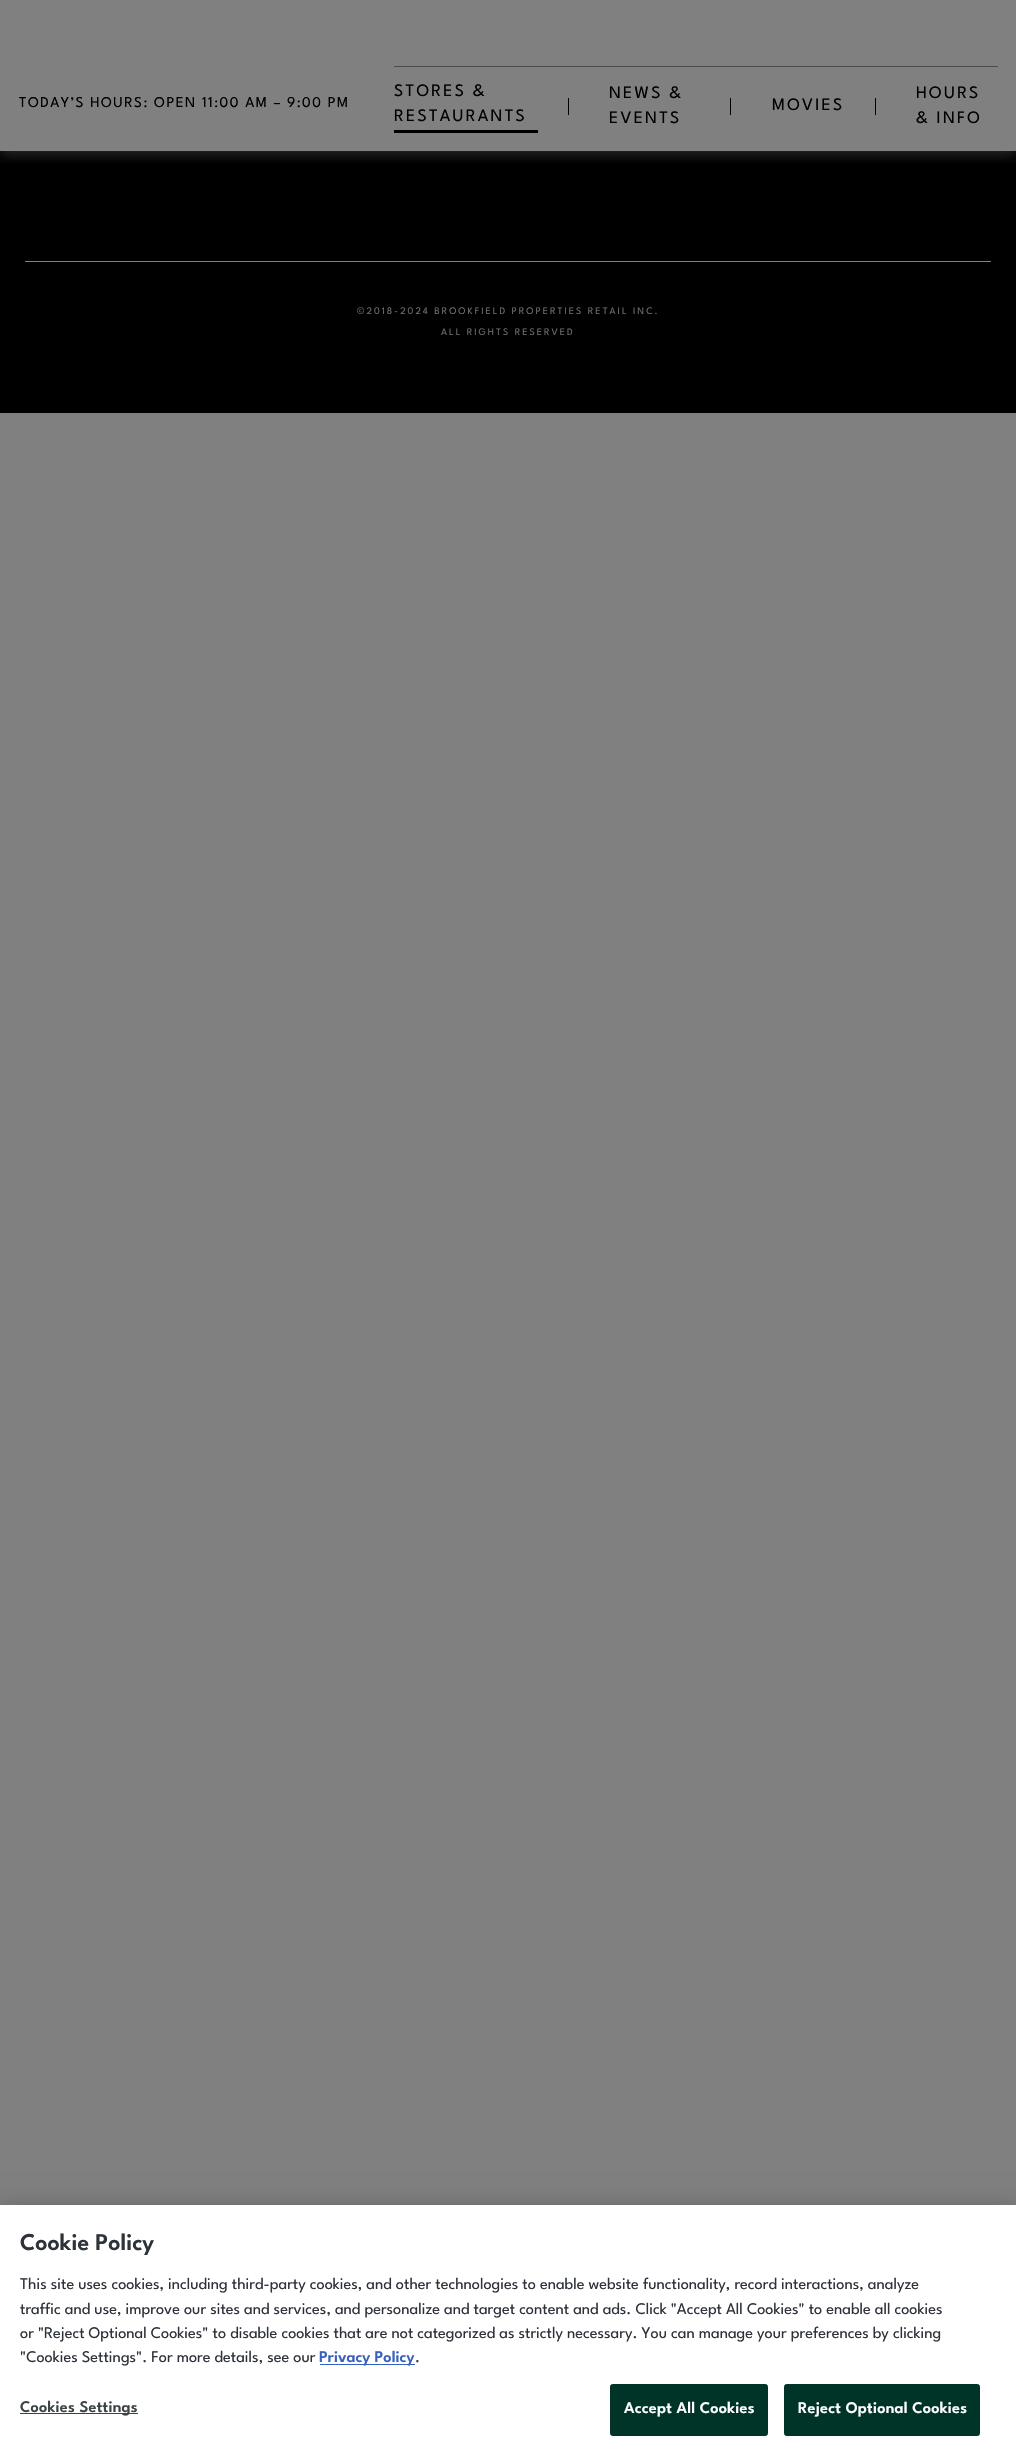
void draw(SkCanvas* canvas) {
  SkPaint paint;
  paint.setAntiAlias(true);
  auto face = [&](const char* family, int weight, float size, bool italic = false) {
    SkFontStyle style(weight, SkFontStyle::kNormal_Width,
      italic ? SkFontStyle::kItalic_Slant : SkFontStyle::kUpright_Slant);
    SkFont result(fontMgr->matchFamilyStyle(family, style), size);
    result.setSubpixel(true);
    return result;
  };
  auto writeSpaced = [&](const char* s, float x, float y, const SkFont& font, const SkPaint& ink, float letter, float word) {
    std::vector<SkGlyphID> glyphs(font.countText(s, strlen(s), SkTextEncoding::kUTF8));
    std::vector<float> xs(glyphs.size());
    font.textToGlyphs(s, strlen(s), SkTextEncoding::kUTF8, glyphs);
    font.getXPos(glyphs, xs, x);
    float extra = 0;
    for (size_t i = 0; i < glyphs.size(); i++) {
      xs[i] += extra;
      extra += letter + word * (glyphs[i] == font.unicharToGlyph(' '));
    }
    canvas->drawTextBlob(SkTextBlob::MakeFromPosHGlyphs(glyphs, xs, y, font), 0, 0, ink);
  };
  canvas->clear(0xff808080);
  paint.setColor(0xff000000);
  canvas->drawRect(SkRect::MakeXYWH(0, 151, 1016, 262), paint);
  canvas->save();
  canvas->clipRect(SkRect::MakeXYWH(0, 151, 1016, 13));
  paint.setColor(0x666c6c6c);
  paint.setMaskFilter(SkMaskFilter::MakeBlur(kNormal_SkBlurStyle, 6));
  canvas->drawRect(SkRect::MakeXYWH(0, 3, 1016, 151), paint);
  paint.setMaskFilter(nullptr);
  canvas->restore();
  {
    const struct { float x, y, w, h; SkColor color; } items[] = {
      {394, 66, 604, 1, 0xff4c4c4c},
      {394, 130, 144, 3, 0xff000000},
      {568, 98, 1, 17, 0xff000000},
      {730, 98, 1, 17, 0xff000000},
      {875, 98, 1, 17, 0xff000000},
      {25, 261, 966, 1, 0xff808080},
    };
    for (auto [x, y, w, h, color] : items) {
      paint.setColor(color);
      canvas->drawRect(SkRect::MakeXYWH(x, y, w, h), paint);
    }
  }
  paint.setColor(0x33000000);
  paint.setMaskFilter(SkMaskFilter::MakeBlur(kNormal_SkBlurStyle, 11));
  canvas->drawRect(SkRect::MakeXYWH(0, 2205, 1016, 256), paint);
  paint.setMaskFilter(nullptr);
  {
    const struct { float x, y, w, h; SkColor color; } items[] = {
      {0, 2205, 1016, 256, 0xffffffff},
      {320, 2364, 95, 1, 0xff3860be},
      {20, 2413, 118, 1, 0xff3c4347},
    };
    for (auto [x, y, w, h, color] : items) {
      paint.setColor(color);
      canvas->drawRect(SkRect::MakeXYWH(x, y, w, h), paint);
    }
  }
  paint.setColor(0xff013429);
  canvas->drawRoundRect(SkRect::MakeXYWH(610.5f, 2384.5f, 157, 51), 2, 2, paint);
  paint.setStroke(true);
  paint.setStrokeWidth(1);
  canvas->drawRoundRect(SkRect::MakeXYWH(610.5f, 2384.5f, 157, 51), 2, 2, paint);
  paint.setStroke(false);
  canvas->drawRoundRect(SkRect::MakeXYWH(784.5f, 2384.5f, 195, 51), 2, 2, paint);
  paint.setStroke(true);
  canvas->drawRoundRect(SkRect::MakeXYWH(784.5f, 2384.5f, 195, 51), 2, 2, paint);
  auto f0 = face("League Spartan", 400, 15);
  paint.setStroke(false);
  paint.setColor(0xff000000);
  writeSpaced("TODAY’S HOURS: OPEN 11:00 AM – 9:00 PM", 19, 107, f0, paint, 1.5f, 0);
  auto f1 = face("League Spartan", 400, 17.5f);
  {
    const struct { const char* s; float x, y; } items[] = {
      {"STORES &", 394, 96},
      {"RESTAURANTS", 394, 121},
      {"NEWS &", 609, 98},
      {"EVENTS", 609, 123},
      {"MOVIES", 772, 110},
      {"HOURS", 916, 98},
      {"& INFO", 916, 123},
    };
    for (auto [s, x, y] : items) {
      writeSpaced(s, x, y, f1, paint, 2.25f, 0);
    }
  }
  auto f2 = face("League Spartan", 400, 10);
  paint.setColor(0xff6c6c6c);
  writeSpaced("©2018-2024 BROOKFIELD PROPERTIES RETAIL INC.", 357, 314, f2, paint, 2, 0);
  writeSpaced("ALL RIGHTS RESERVED", 441, 335, f2, paint, 2, 0);
  auto f3 = face("League Spartan", 600, 24);
  paint.setColor(0xff2e323a);
  canvas->drawString("Cookie Policy", 20, 2250, f3, paint);
  auto f4 = face("League Spartan", 400, 16.25f);
  {
    const struct { const char* s; float x, y; } items[] = {
      {"This site uses cookies, including third-party cookies, and other technologies to enable website functionality, record interactions, analyze", 20, 2289},
      {"traffic and use, improve our sites and services, and personalize and target content and ads. Click \"Accept All Cookies\" to enable all cookies", 20, 2314},
      {"or \"Reject Optional Cookies\" to disable cookies that are not categorized as strictly necessary. You can manage your preferences by clicking", 20, 2338},
      {"\"Cookies Settings\". For more details, see our", 20, 2362},
    };
    for (auto [s, x, y] : items) {
      canvas->drawString(s, x, y, f4, paint);
    }
  }
  auto f5 = face("League Spartan", 600, 16.25f);
  paint.setColor(0xff3860be);
  canvas->drawString("Privacy Policy", 319, 2362, f5, paint);
  paint.setColor(0xff2e323a);
  canvas->drawString(".", 415, 2362, f4, paint);
  paint.setColor(0xff3c4347);
  writeSpaced("Cookies Settings", 20, 2412, f5, paint, 0.2f, 0);
  paint.setColor(0xffffffff);
  writeSpaced("Accept All Cookies", 624, 2413, f5, paint, 0.2f, 0);
  writeSpaced("Reject Optional Cookies", 798, 2413, f5, paint, 0.2f, 0);
}
